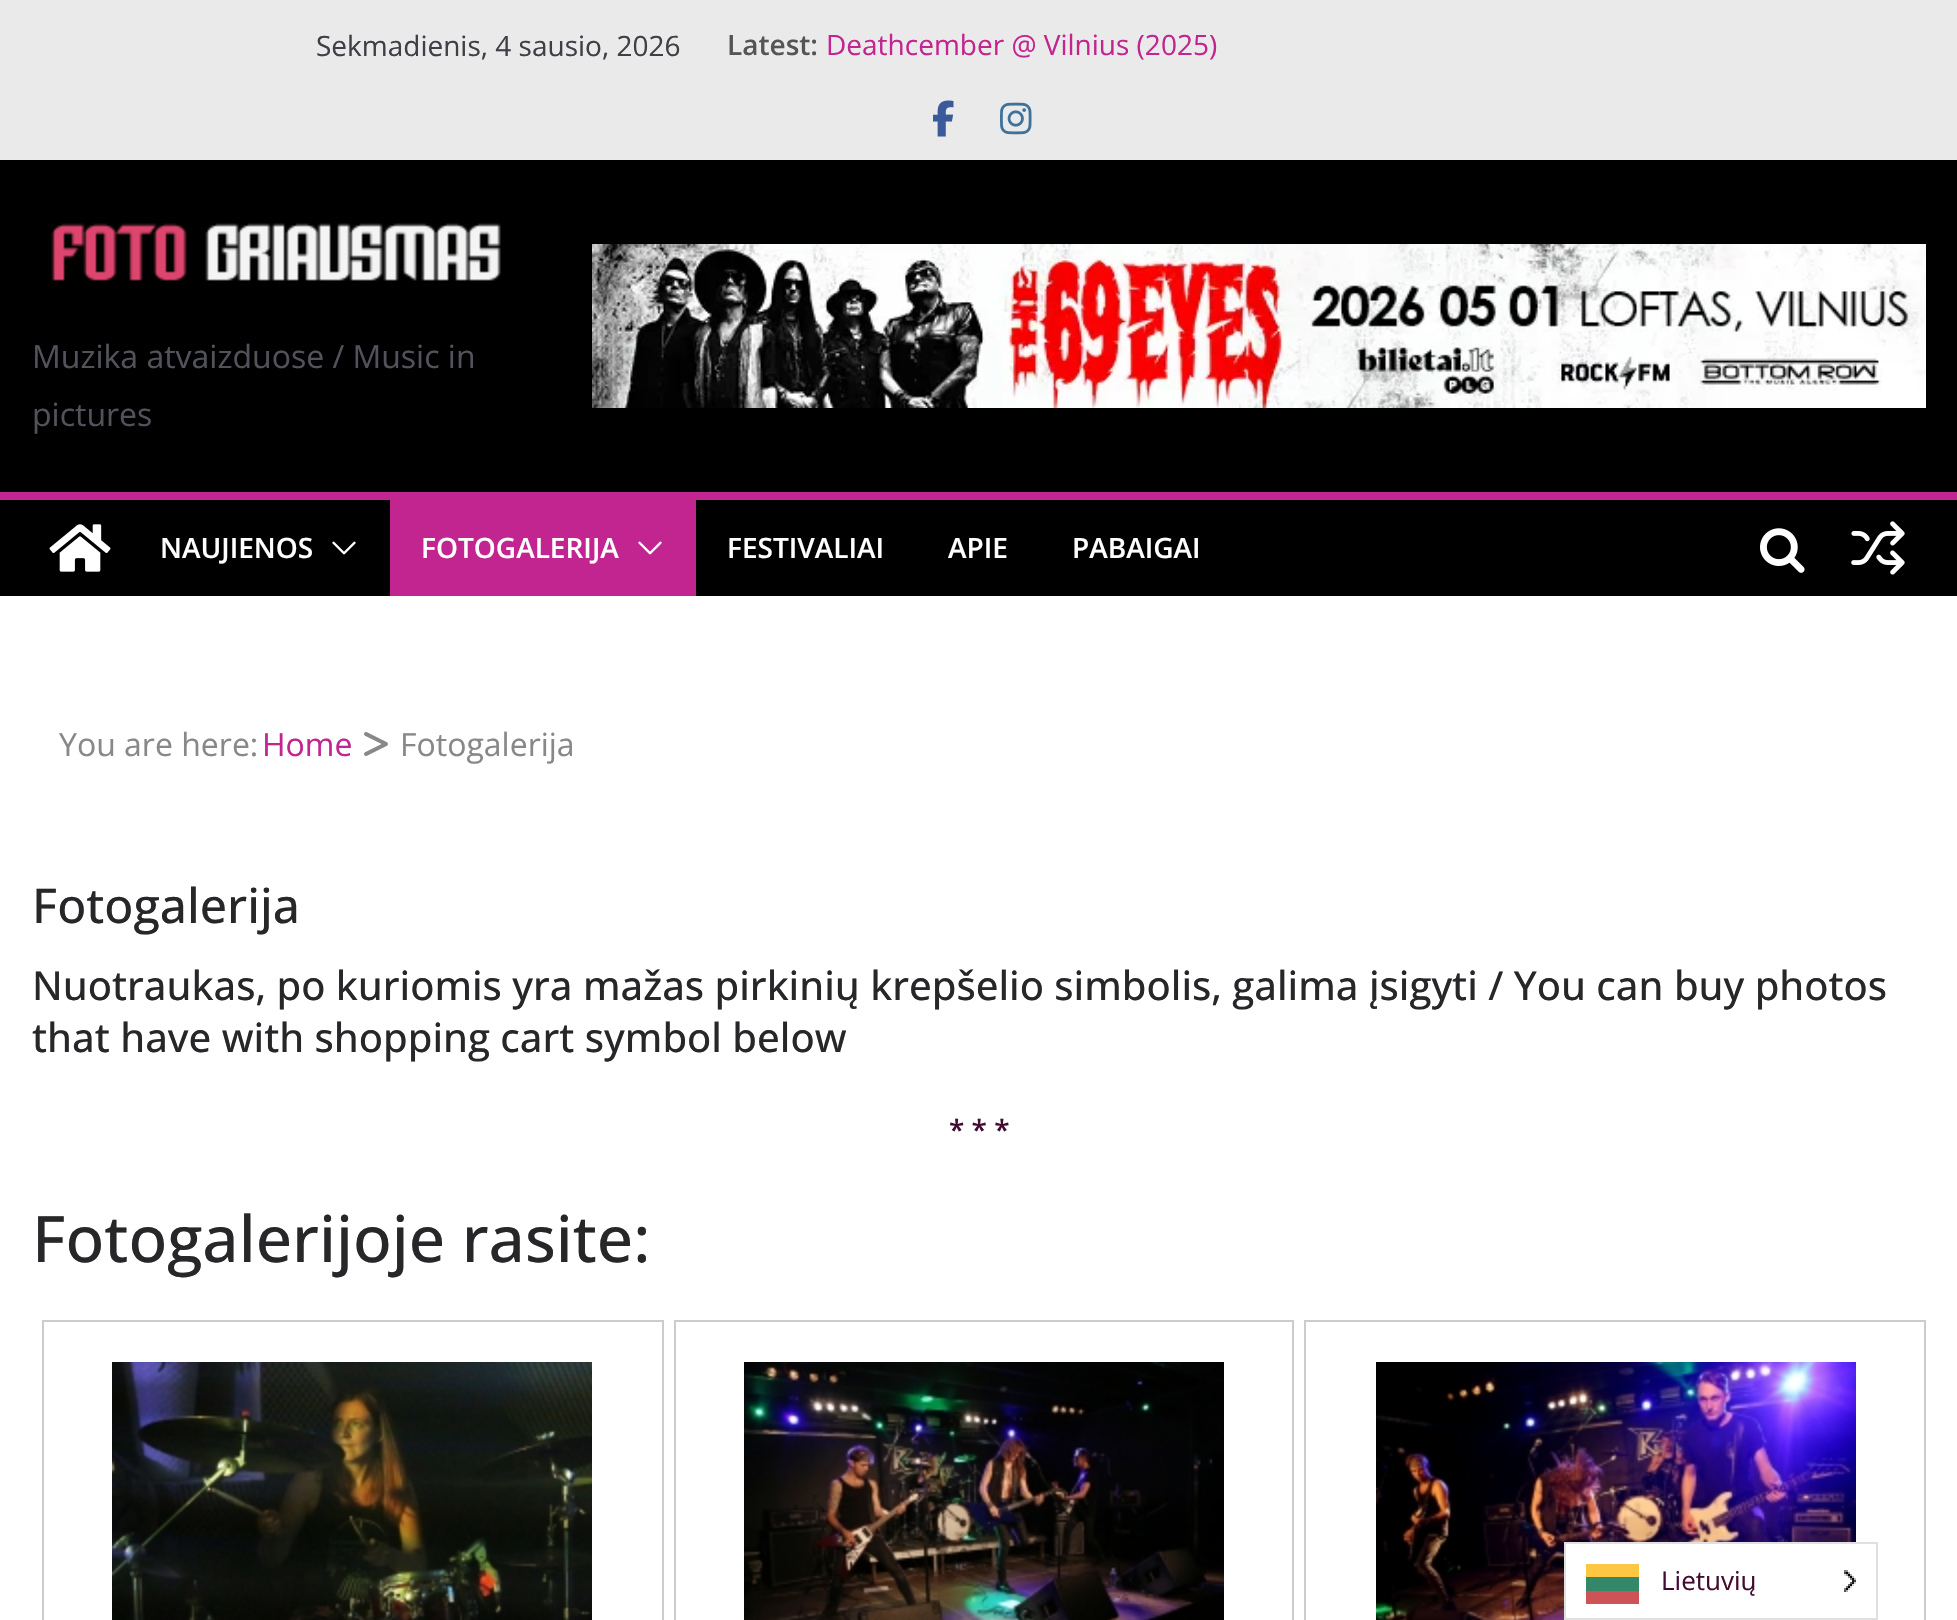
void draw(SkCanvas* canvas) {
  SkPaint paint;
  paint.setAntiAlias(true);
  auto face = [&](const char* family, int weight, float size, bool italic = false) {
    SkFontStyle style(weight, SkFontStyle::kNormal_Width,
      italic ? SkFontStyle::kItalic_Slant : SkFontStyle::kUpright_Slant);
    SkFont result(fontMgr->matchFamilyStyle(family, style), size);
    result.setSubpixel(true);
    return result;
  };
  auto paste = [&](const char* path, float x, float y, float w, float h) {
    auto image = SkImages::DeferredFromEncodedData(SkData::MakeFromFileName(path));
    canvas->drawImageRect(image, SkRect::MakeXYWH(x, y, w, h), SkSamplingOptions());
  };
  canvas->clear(0xffeaeaea);
  paste("img/1.png", 933, 100, 21, 37);
  paste("img/2.png", 1000, 102, 32, 33);
  paint.setColor(0xff000000);
  canvas->drawRect(SkRect::MakeXYWH(0, 160, 1957, 332), paint);
  paste("img/3.png", 51, 223, 450, 58);
  paste("img/4.png", 592, 244, 1334, 164);
  canvas->drawRect(SkRect::MakeXYWH(0, 500, 1957, 96), paint);
  paint.setColor(0xffc22590);
  canvas->drawRect(SkRect::MakeXYWH(0, 492, 1957, 8), paint);
  paste("img/5.png", 49, 524, 62, 48);
  paste("img/6.png", 332, 541, 24, 14);
  canvas->drawRect(SkRect::MakeXYWH(390, 500, 306, 96), paint);
  paste("img/7.png", 638, 541, 24, 14);
  paste("img/8.png", 1760, 528, 45, 45);
  paste("img/9.png", 1851, 521, 54, 54);
  paint.setColor(0xffffffff);
  canvas->drawRect(SkRect::MakeXYWH(0, 596, 1957, 1024), paint);
  paste("img/10.png", 364, 732, 24, 24);
  paint.setStroke(true);
  paint.setStrokeWidth(2);
  paint.setColor(0xffcccccc);
  canvas->drawRect(SkRect::MakeXYWH(43, 1321, 620, 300), paint);
  paste("img/11.png", 112, 1362, 480, 258);
  canvas->drawRect(SkRect::MakeXYWH(675, 1321, 618, 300), paint);
  paste("img/12.png", 744, 1362, 480, 258);
  canvas->drawRect(SkRect::MakeXYWH(1305, 1321, 620, 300), paint);
  paste("img/13.png", 1376, 1362, 480, 258);
  paint.setStroke(false);
  paint.setColor(0xffffffff);
  canvas->drawRect(SkRect::MakeXYWH(1566, 1544, 290, 74), paint);
  paint.setStroke(true);
  paint.setColor(0xffe0e0e0);
  canvas->drawRect(SkRect::MakeXYWH(1565, 1543, 312, 76), paint);
  paint.setStroke(false);
  {
    const struct { float x, y, w, h; SkColor color; } items[] = {
      {1586, 1577, 53, 14, 0xff006a44},
      {1586, 1591, 53, 13, 0xffc1272d},
      {1586, 1564, 53, 13, 0xfffdb913},
      {1586, 1564, 53, 40, 0x33ffffff},
    };
    for (auto [x, y, w, h, color] : items) {
      paint.setColor(color);
      canvas->drawRect(SkRect::MakeXYWH(x, y, w, h), paint);
    }
  }
  paste("img/14.png", 1844, 1570, 12, 22);
  auto f0 = face("Open Sans", 400, 28);
  paint.setColor(0xff3f3f46);
  canvas->drawString("Sekmadienis, 4 sausio, 2026", 316, 56, f0, paint);
  auto f1 = face("Open Sans", 600, 28);
  paint.setColor(0xff555555);
  canvas->drawString("Latest:", 727, 55, f1, paint);
  paint.setColor(0xffc22590);
  canvas->drawString("Deathcember @ Vilnius (2025)", 826, 55, f0, paint);
  auto f2 = face("Open Sans", 400, 32);
  paint.setColor(0xff52525b);
  canvas->drawString("Muzika atvaizduose / Music in", 32, 368, f2, paint);
  canvas->drawString("pictures", 32, 426, f2, paint);
  paint.setColor(0xffffffff);
  {
    const struct { const char* s; float x, y; } items[] = {
      {"NAUJIENOS", 160, 558},
      {"FOTOGALERIJA", 421, 558},
      {"FESTIVALIAI", 727, 558},
      {"APIE", 948, 558},
      {"PABAIGAI", 1072, 558},
    };
    for (auto [s, x, y] : items) {
      canvas->drawString(s, x, y, f1, paint);
    }
  }
  paint.setColor(0xff888888);
  canvas->drawString("You are here:", 59, 756, f2, paint);
  paint.setColor(0xffc22590);
  canvas->drawString("Home", 262, 756, f2, paint);
  paint.setColor(0xff888888);
  canvas->drawString("Fotogalerija", 400, 756, f2, paint);
  auto f3 = face("Open Sans", 500, 48);
  paint.setColor(0xff27272a);
  canvas->drawString("Fotogalerija", 32, 923, f3, paint);
  auto f4 = face("Open Sans", 500, 40);
  canvas->drawString("Nuotraukas, po kuriomis yra mažas pirkinių krepšelio simbolis, galima įsigyti / You can buy photos", 32, 1000, f4, paint);
  canvas->drawString("that have with shopping cart symbol below", 32, 1052, f4, paint);
  paint.setColor(0xff420c31);
  canvas->drawString("* * *", 949, 1140, f1, paint);
  auto f5 = face("Open Sans", 500, 64);
  paint.setColor(0xff27272a);
  canvas->drawString("Fotogalerijoje rasite:", 32, 1262, f5, paint);
  auto f6 = face("Open Sans", 400, 26);
  paint.setColor(0xff420c31);
  canvas->drawString("Lietuvių", 1661, 1590, f6, paint);
}
